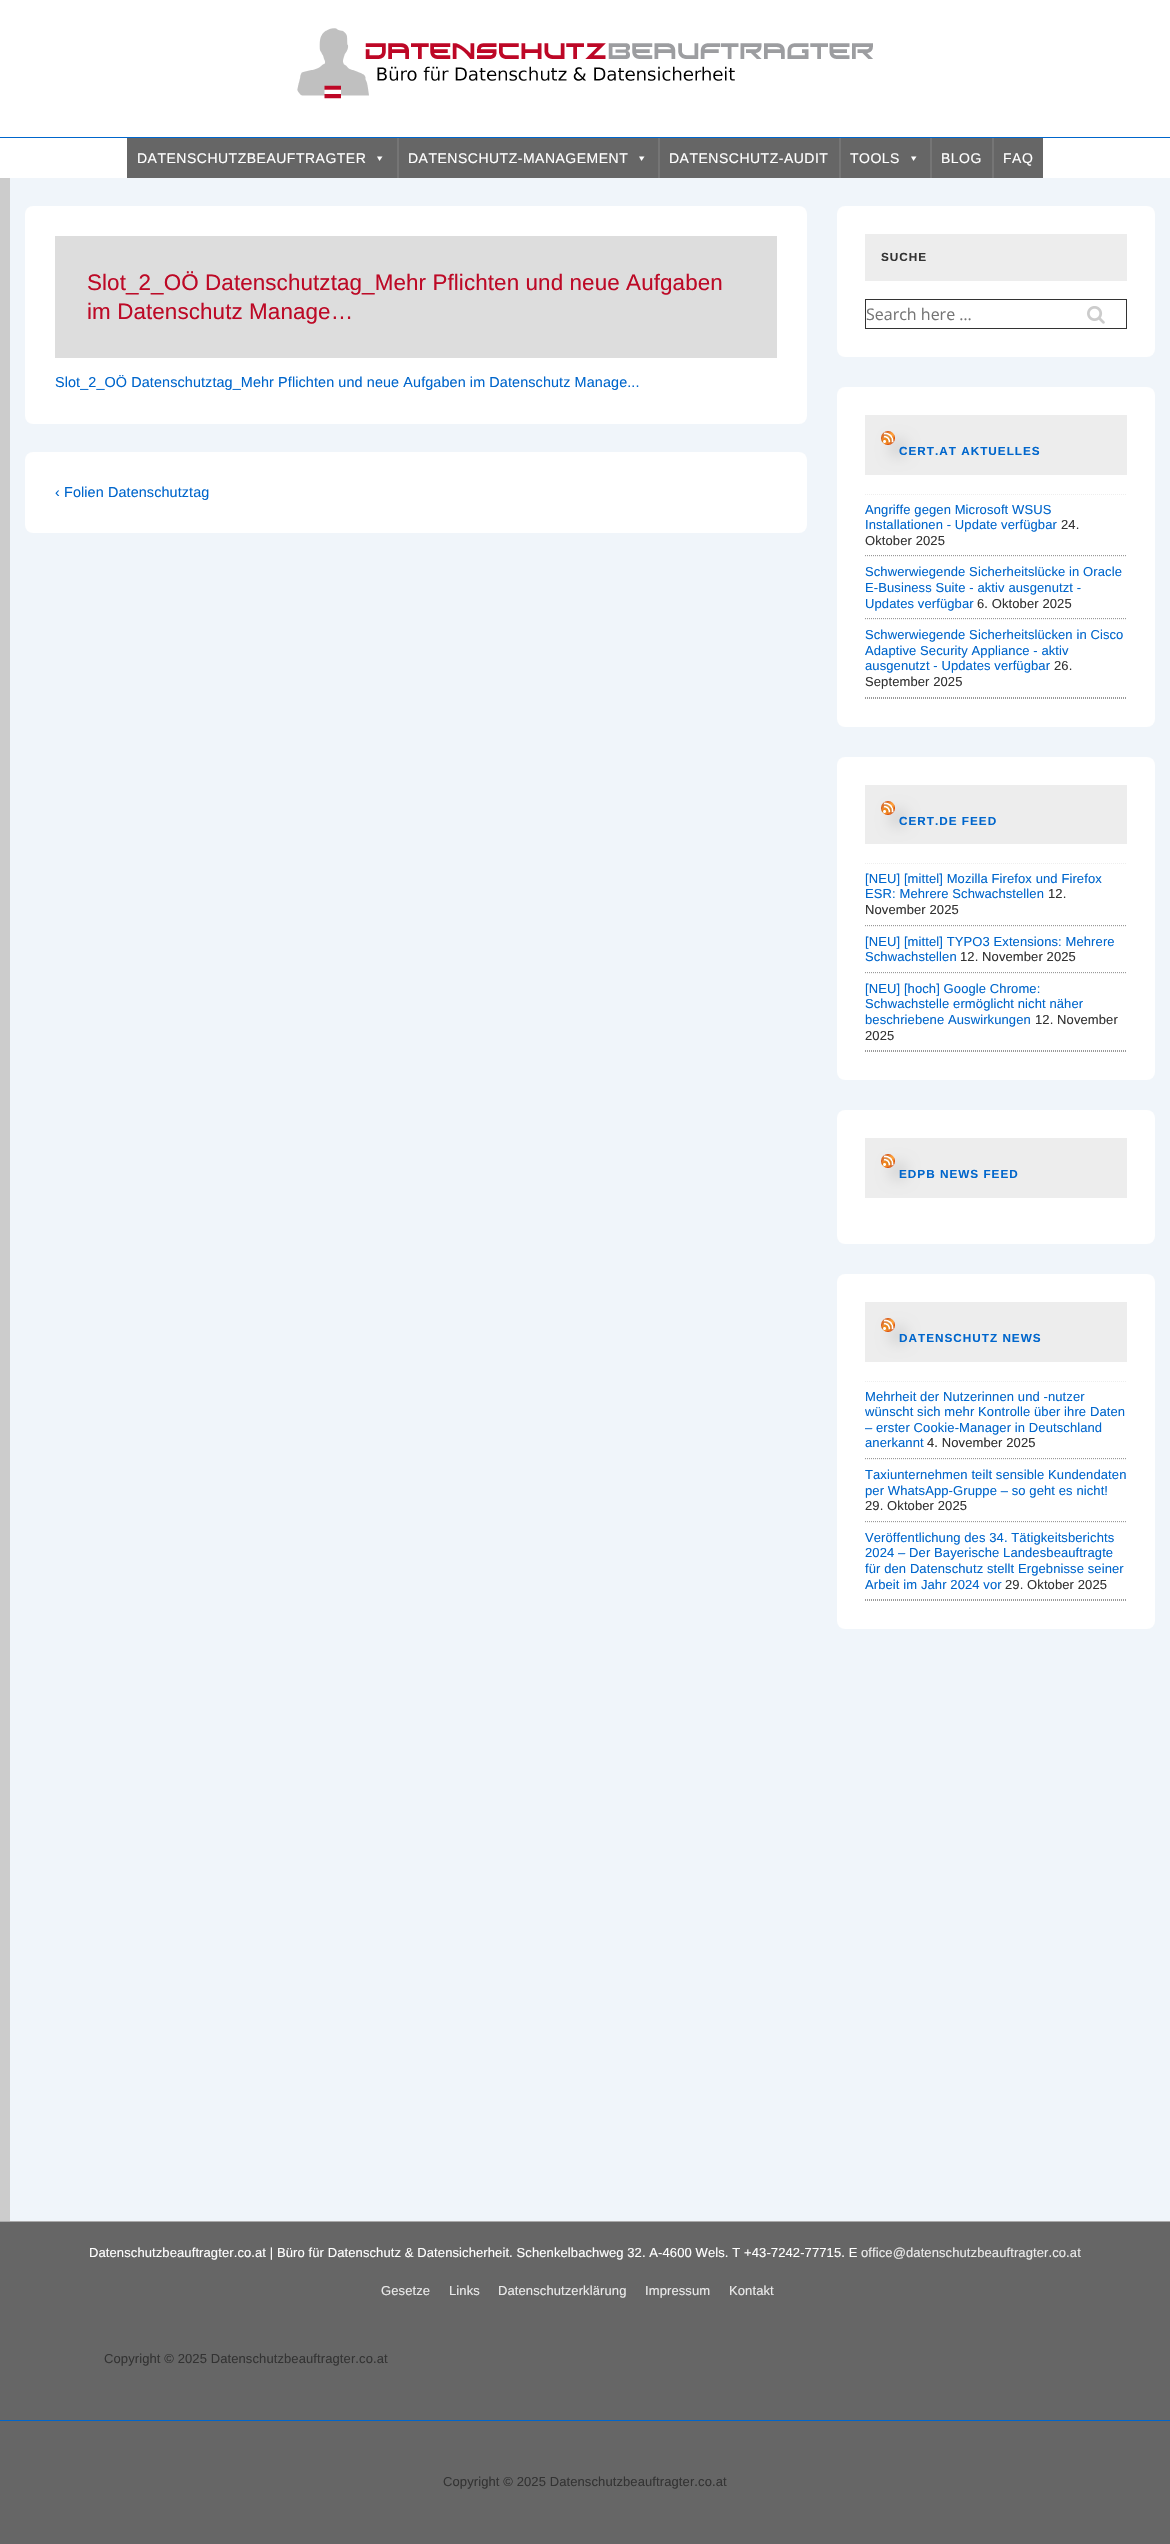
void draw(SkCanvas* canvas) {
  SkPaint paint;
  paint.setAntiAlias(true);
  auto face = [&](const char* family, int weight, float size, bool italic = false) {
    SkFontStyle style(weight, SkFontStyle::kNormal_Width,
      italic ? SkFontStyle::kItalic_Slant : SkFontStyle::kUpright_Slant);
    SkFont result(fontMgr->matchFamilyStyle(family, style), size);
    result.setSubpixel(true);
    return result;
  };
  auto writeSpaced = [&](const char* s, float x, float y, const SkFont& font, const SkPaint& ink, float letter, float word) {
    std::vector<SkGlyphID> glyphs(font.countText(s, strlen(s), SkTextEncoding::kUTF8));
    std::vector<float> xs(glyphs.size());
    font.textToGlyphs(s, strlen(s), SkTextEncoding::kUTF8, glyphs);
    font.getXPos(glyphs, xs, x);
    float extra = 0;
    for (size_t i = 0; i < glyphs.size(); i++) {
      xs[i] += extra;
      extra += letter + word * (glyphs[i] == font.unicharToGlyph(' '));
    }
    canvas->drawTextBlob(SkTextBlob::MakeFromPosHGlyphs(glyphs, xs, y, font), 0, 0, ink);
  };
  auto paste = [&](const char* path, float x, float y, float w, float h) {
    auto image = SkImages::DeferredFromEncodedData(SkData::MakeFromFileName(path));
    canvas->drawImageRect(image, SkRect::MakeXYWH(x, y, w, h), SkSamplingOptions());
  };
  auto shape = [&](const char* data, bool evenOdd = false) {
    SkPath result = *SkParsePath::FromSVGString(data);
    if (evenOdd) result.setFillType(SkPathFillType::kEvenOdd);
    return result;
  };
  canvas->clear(0xfff0f5fa);
  paint.setColor(0xffffffff);
  canvas->drawRect(SkRect::MakeXYWH(0, 0, 1170, 137), paint);
  paint.setColor(0xff0066cc);
  canvas->drawRect(SkRect::MakeXYWH(0, 137, 1170, 1), paint);
  paste("img/1.png", 297, 28, 576, 71);
  paint.setColor(0xffffffff);
  canvas->drawRect(SkRect::MakeXYWH(0, 138, 1170, 40), paint);
  paint.setColor(0xff666666);
  canvas->drawRect(SkRect::MakeXYWH(127, 138, 916, 40), paint);
  paint.setColor(0xffffffff);
  canvas->drawPath(shape("M382.5 156.5L379.5 161L377 156.5Z"), paint);
  paint.setColor(0xff757575);
  canvas->drawRect(SkRect::MakeXYWH(397, 138, 2, 40), paint);
  paint.setColor(0xffffffff);
  canvas->drawPath(shape("M644.5 156.5L641.5 161L639 156.5Z"), paint);
  paint.setColor(0xff757575);
  canvas->drawRect(SkRect::MakeXYWH(658, 138, 2, 40), paint);
  canvas->drawRect(SkRect::MakeXYWH(839, 138, 2, 40), paint);
  paint.setColor(0xffffffff);
  canvas->drawPath(shape("M916.5 156.5L913.5 161L911 156.5Z"), paint);
  {
    const struct { float x, y, w, h; SkColor color; } items[] = {
      {930, 138, 2, 40, 0xff757575},
      {992, 138, 2, 40, 0xff757575},
      {0, 178, 10, 2043, 0xffcccccc},
    };
    for (auto [x, y, w, h, color] : items) {
      paint.setColor(color);
      canvas->drawRect(SkRect::MakeXYWH(x, y, w, h), paint);
    }
  }
  paint.setColor(0xffffffff);
  canvas->drawRoundRect(SkRect::MakeXYWH(25, 206, 782, 218), 8, 8, paint);
  paint.setColor(0xffdddddd);
  canvas->drawRect(SkRect::MakeXYWH(55, 236, 722, 122), paint);
  paint.setColor(0xffffffff);
  canvas->drawRoundRect(SkRect::MakeXYWH(25, 452, 782, 81), 8, 8, paint);
  canvas->drawRoundRect(SkRect::MakeXYWH(837, 206, 318, 151), 8, 8, paint);
  paint.setColor(0xffededed);
  canvas->drawRect(SkRect::MakeXYWH(865, 234, 262, 47), paint);
  paint.setStroke(true);
  paint.setStrokeWidth(1);
  paint.setColor(0xff333333);
  canvas->drawRect(SkRect::MakeXYWH(865.5f, 299.5f, 261, 29), paint);
  paste("img/2.png", 1087, 306, 18, 18);
  paint.setStroke(false);
  paint.setColor(0xffffffff);
  canvas->drawRoundRect(SkRect::MakeXYWH(837, 387, 318, 340), 8, 8, paint);
  paint.setColor(0xffededed);
  canvas->drawRect(SkRect::MakeXYWH(865, 415, 262, 60), paint);
  paint.setColor(0xffc0c0c0);
  paint.setMaskFilter(SkMaskFilter::MakeBlur(kNormal_SkBlurStyle, 7.5f));
  canvas->drawRoundRect(SkRect::MakeXYWH(891, 441, 14, 14), 7, 7, paint);
  paint.setMaskFilter(nullptr);
  paste("img/3.png", 881, 431, 14, 14);
  paint.setStroke(true);
  paint.setColor(0xff999999);
  paint.setPathEffect(SkDashPathEffect::Make({{1, 1}}, 0));
  canvas->drawPath(shape("M865 698.5H1127"), paint);
  paint.setPathEffect(nullptr);
  paint.setColor(0xffeeeeee);
  paint.setPathEffect(SkDashPathEffect::Make({{1, 1}}, 0));
  canvas->drawPath(shape("M865 494.5H1127"), paint);
  paint.setPathEffect(nullptr);
  paint.setColor(0xff999999);
  paint.setPathEffect(SkDashPathEffect::Make({{1, 1}}, 0));
  canvas->drawPath(shape("M865 555.5H1127"), paint);
  paint.setPathEffect(nullptr);
  paint.setColor(0xffeeeeee);
  paint.setPathEffect(SkDashPathEffect::Make({{1, 1}}, 0));
  canvas->drawPath(shape("M865 556.5H1127"), paint);
  paint.setPathEffect(nullptr);
  paint.setColor(0xff999999);
  paint.setPathEffect(SkDashPathEffect::Make({{1, 1}}, 0));
  canvas->drawPath(shape("M865 618.5H1127"), paint);
  paint.setPathEffect(nullptr);
  paint.setColor(0xffeeeeee);
  paint.setPathEffect(SkDashPathEffect::Make({{1, 1}}, 0));
  canvas->drawPath(shape("M865 619.5H1127"), paint);
  paint.setPathEffect(nullptr);
  paint.setColor(0xff999999);
  paint.setPathEffect(SkDashPathEffect::Make({{1, 1}}, 0));
  canvas->drawPath(shape("M865 697.5H1127"), paint);
  paint.setPathEffect(nullptr);
  paint.setStroke(false);
  paint.setColor(0xffffffff);
  canvas->drawRoundRect(SkRect::MakeXYWH(837, 757, 318, 323), 8, 8, paint);
  paint.setColor(0xffededed);
  canvas->drawRect(SkRect::MakeXYWH(865, 785, 262, 59), paint);
  paint.setColor(0xffc0c0c0);
  paint.setMaskFilter(SkMaskFilter::MakeBlur(kNormal_SkBlurStyle, 7.5f));
  canvas->drawRoundRect(SkRect::MakeXYWH(891, 811, 14, 14), 7, 7, paint);
  paint.setMaskFilter(nullptr);
  paste("img/3.png", 881, 801, 14, 14);
  paint.setStroke(true);
  paint.setColor(0xff999999);
  paint.setPathEffect(SkDashPathEffect::Make({{1, 1}}, 0));
  canvas->drawPath(shape("M865 1051.5H1127"), paint);
  paint.setPathEffect(nullptr);
  paint.setColor(0xffeeeeee);
  paint.setPathEffect(SkDashPathEffect::Make({{1, 1}}, 0));
  canvas->drawPath(shape("M865 863.5H1127"), paint);
  paint.setPathEffect(nullptr);
  paint.setColor(0xff999999);
  paint.setPathEffect(SkDashPathEffect::Make({{1, 1}}, 0));
  canvas->drawPath(shape("M865 925.5H1127"), paint);
  paint.setPathEffect(nullptr);
  paint.setColor(0xffeeeeee);
  paint.setPathEffect(SkDashPathEffect::Make({{1, 1}}, 0));
  canvas->drawPath(shape("M865 926.5H1127"), paint);
  paint.setPathEffect(nullptr);
  paint.setColor(0xff999999);
  paint.setPathEffect(SkDashPathEffect::Make({{1, 1}}, 0));
  canvas->drawPath(shape("M865 972.5H1127"), paint);
  paint.setPathEffect(nullptr);
  paint.setColor(0xffeeeeee);
  paint.setPathEffect(SkDashPathEffect::Make({{1, 1}}, 0));
  canvas->drawPath(shape("M865 973.5H1127"), paint);
  paint.setPathEffect(nullptr);
  paint.setColor(0xff999999);
  paint.setPathEffect(SkDashPathEffect::Make({{1, 1}}, 0));
  canvas->drawPath(shape("M865 1050.5H1127"), paint);
  paint.setPathEffect(nullptr);
  paint.setStroke(false);
  paint.setColor(0xffffffff);
  canvas->drawRoundRect(SkRect::MakeXYWH(837, 1110, 318, 134), 8, 8, paint);
  paint.setColor(0xffededed);
  canvas->drawRect(SkRect::MakeXYWH(865, 1138, 262, 60), paint);
  paint.setColor(0xffc0c0c0);
  paint.setMaskFilter(SkMaskFilter::MakeBlur(kNormal_SkBlurStyle, 7.5f));
  canvas->drawRoundRect(SkRect::MakeXYWH(891, 1164, 14, 14), 7, 7, paint);
  paint.setMaskFilter(nullptr);
  paste("img/3.png", 881, 1154, 14, 14);
  paint.setColor(0xffffffff);
  canvas->drawRoundRect(SkRect::MakeXYWH(837, 1274, 318, 355), 8, 8, paint);
  paint.setColor(0xffededed);
  canvas->drawRect(SkRect::MakeXYWH(865, 1302, 262, 60), paint);
  paint.setColor(0xffc0c0c0);
  paint.setMaskFilter(SkMaskFilter::MakeBlur(kNormal_SkBlurStyle, 7.5f));
  canvas->drawRoundRect(SkRect::MakeXYWH(891, 1328, 14, 14), 7, 7, paint);
  paint.setMaskFilter(nullptr);
  paste("img/3.png", 881, 1318, 14, 14);
  paint.setStroke(true);
  paint.setColor(0xff999999);
  paint.setPathEffect(SkDashPathEffect::Make({{1, 1}}, 0));
  canvas->drawPath(shape("M865 1600.5H1127"), paint);
  paint.setPathEffect(nullptr);
  paint.setColor(0xffeeeeee);
  paint.setPathEffect(SkDashPathEffect::Make({{1, 1}}, 0));
  canvas->drawPath(shape("M865 1381.5H1127"), paint);
  paint.setPathEffect(nullptr);
  paint.setColor(0xff999999);
  paint.setPathEffect(SkDashPathEffect::Make({{1, 1}}, 0));
  canvas->drawPath(shape("M865 1458.5H1127"), paint);
  paint.setPathEffect(nullptr);
  paint.setColor(0xffeeeeee);
  paint.setPathEffect(SkDashPathEffect::Make({{1, 1}}, 0));
  canvas->drawPath(shape("M865 1459.5H1127"), paint);
  paint.setPathEffect(nullptr);
  paint.setColor(0xff999999);
  paint.setPathEffect(SkDashPathEffect::Make({{1, 1}}, 0));
  canvas->drawPath(shape("M865 1521.5H1127"), paint);
  paint.setPathEffect(nullptr);
  paint.setColor(0xffeeeeee);
  paint.setPathEffect(SkDashPathEffect::Make({{1, 1}}, 0));
  canvas->drawPath(shape("M865 1522.5H1127"), paint);
  paint.setPathEffect(nullptr);
  paint.setColor(0xff999999);
  paint.setPathEffect(SkDashPathEffect::Make({{1, 1}}, 0));
  canvas->drawPath(shape("M865 1599.5H1127"), paint);
  paint.setPathEffect(nullptr);
  paint.setStroke(false);
  {
    const struct { float x, y, w, h; SkColor color; } items[] = {
      {0, 2222, 1170, 322, 0xff666666},
      {0, 2221, 1170, 1, 0xffaaaaaa},
      {0, 2420, 1170, 1, 0xff0066cc},
    };
    for (auto [x, y, w, h, color] : items) {
      paint.setColor(color);
      canvas->drawRect(SkRect::MakeXYWH(x, y, w, h), paint);
    }
  }
  auto f0 = face("Liberation Sans", 400, 14);
  paint.setColor(0xffffffff);
  {
    const struct { const char* s; float x, y; } items[] = {
      {"DATENSCHUTZBEAUFTRAGTER", 137, 163},
      {"DATENSCHUTZ-MANAGEMENT", 408, 163},
      {"DATENSCHUTZ-AUDIT", 669, 163},
      {"TOOLS", 850, 163},
      {"BLOG", 941, 163},
      {"FAQ", 1003, 163},
    };
    for (auto [s, x, y] : items) {
      writeSpaced(s, x, y, f0, paint, 0.5f, 0);
    }
  }
  auto f1 = face("Liberation Sans", 400, 22.4f);
  paint.setColor(0xffbd0926);
  writeSpaced("Slot_2_OÖ Datenschutztag_Mehr Pflichten und neue Aufgaben", 87, 290, f1, paint, 0.1f, 0);
  writeSpaced("im Datenschutz Manage…", 87, 319, f1, paint, 0.1f, 0);
  auto f2 = face("Liberation Sans", 400, 14.4f);
  paint.setColor(0xff0066cc);
  writeSpaced("Slot_2_OÖ Datenschutztag_Mehr Pflichten und neue Aufgaben im Datenschutz Manage...", 55, 387, f2, paint, 0.1f, 0);
  writeSpaced("‹ Folien Datenschutztag", 55, 497, f2, paint, 0.1f, 0);
  auto f3 = face("Liberation Sans", 700, 11.75f);
  paint.setColor(0xff333333);
  writeSpaced("SUCHE", 881, 261, f3, paint, 1, 0);
  auto f4 = face("Open Sans", 400, 16);
  paint.setColor(0xff757575);
  canvas->drawString("Search here …", 866, 320, f4, paint);
  paint.setColor(0xff0066cc);
  writeSpaced("CERT.AT AKTUELLES", 899, 455, f3, paint, 1, 0);
  auto f5 = face("Liberation Sans", 400, 13);
  writeSpaced("Angriffe gegen Microsoft WSUS", 865, 514, f5, paint, 0.1f, 0);
  writeSpaced("Installationen - Update verfügbar", 865, 529, f5, paint, 0.1f, 0);
  paint.setColor(0xff333333);
  writeSpaced("24.", 1061, 529, f5, paint, 0.1f, 0);
  writeSpaced("Oktober 2025", 865, 545, f5, paint, 0.1f, 0);
  paint.setColor(0xff0066cc);
  {
    const struct { const char* s; float x, y; } items[] = {
      {"Schwerwiegende Sicherheitslücke in Oracle", 865, 576},
      {"E-Business Suite - aktiv ausgenutzt -", 865, 592},
      {"Updates verfügbar", 865, 608},
    };
    for (auto [s, x, y] : items) {
      writeSpaced(s, x, y, f5, paint, 0.1f, 0);
    }
  }
  paint.setColor(0xff333333);
  writeSpaced("6. Oktober 2025", 977, 608, f5, paint, 0.1f, 0);
  paint.setColor(0xff0066cc);
  {
    const struct { const char* s; float x, y; } items[] = {
      {"Schwerwiegende Sicherheitslücken in Cisco", 865, 639},
      {"Adaptive Security Appliance - aktiv", 865, 655},
      {"ausgenutzt - Updates verfügbar", 865, 670},
    };
    for (auto [s, x, y] : items) {
      writeSpaced(s, x, y, f5, paint, 0.1f, 0);
    }
  }
  paint.setColor(0xff333333);
  writeSpaced("26.", 1054, 670, f5, paint, 0.1f, 0);
  writeSpaced("September 2025", 865, 686, f5, paint, 0.1f, 0);
  paint.setColor(0xff0066cc);
  writeSpaced("CERT.DE FEED", 899, 825, f3, paint, 1, 0);
  writeSpaced("[NEU] [mittel] Mozilla Firefox und Firefox", 865, 883, f5, paint, 0.1f, 0);
  writeSpaced("ESR: Mehrere Schwachstellen", 865, 898, f5, paint, 0.1f, 0);
  paint.setColor(0xff333333);
  writeSpaced("12.", 1048, 898, f5, paint, 0.1f, 0);
  writeSpaced("November 2025", 865, 914, f5, paint, 0.1f, 0);
  paint.setColor(0xff0066cc);
  writeSpaced("[NEU] [mittel] TYPO3 Extensions: Mehrere", 865, 946, f5, paint, 0.1f, 0);
  writeSpaced("Schwachstellen", 865, 961, f5, paint, 0.1f, 0);
  paint.setColor(0xff333333);
  writeSpaced("12. November 2025", 960, 961, f5, paint, 0.1f, 0);
  paint.setColor(0xff0066cc);
  {
    const struct { const char* s; float x, y; } items[] = {
      {"[NEU] [hoch] Google Chrome:", 865, 993},
      {"Schwachstelle ermöglicht nicht näher", 865, 1008},
      {"beschriebene Auswirkungen", 865, 1024},
    };
    for (auto [s, x, y] : items) {
      writeSpaced(s, x, y, f5, paint, 0.1f, 0);
    }
  }
  paint.setColor(0xff333333);
  writeSpaced("12. November", 1035, 1024, f5, paint, 0.1f, 0);
  writeSpaced("2025", 865, 1040, f5, paint, 0.1f, 0);
  paint.setColor(0xff0066cc);
  writeSpaced("EDPB NEWS FEED", 899, 1178, f3, paint, 1, 0);
  writeSpaced("DATENSCHUTZ NEWS", 899, 1342, f3, paint, 1, 0);
  {
    const struct { const char* s; float x, y; } items[] = {
      {"Mehrheit der Nutzerinnen und -nutzer", 865, 1401},
      {"wünscht sich mehr Kontrolle über ihre Daten", 865, 1416},
      {"– erster Cookie-Manager in Deutschland", 865, 1432},
      {"anerkannt", 865, 1447},
    };
    for (auto [s, x, y] : items) {
      writeSpaced(s, x, y, f5, paint, 0.1f, 0);
    }
  }
  paint.setColor(0xff333333);
  writeSpaced("4. November 2025", 927, 1447, f5, paint, 0.1f, 0);
  paint.setColor(0xff0066cc);
  writeSpaced("Taxiunternehmen teilt sensible Kundendaten", 865, 1479, f5, paint, 0.1f, 0);
  writeSpaced("per WhatsApp-Gruppe – so geht es nicht!", 865, 1495, f5, paint, 0.1f, 0);
  paint.setColor(0xff333333);
  writeSpaced("29. Oktober 2025", 865, 1510, f5, paint, 0.1f, 0);
  paint.setColor(0xff0066cc);
  {
    const struct { const char* s; float x, y; } items[] = {
      {"Veröffentlichung des 34. Tätigkeitsberichts", 865, 1542},
      {"2024 – Der Bayerische Landesbeauftragte", 865, 1557},
      {"für den Datenschutz stellt Ergebnisse seiner", 865, 1573},
      {"Arbeit im Jahr 2024 vor", 865, 1589},
    };
    for (auto [s, x, y] : items) {
      writeSpaced(s, x, y, f5, paint, 0.1f, 0);
    }
  }
  paint.setColor(0xff333333);
  writeSpaced("29. Oktober 2025", 1005, 1589, f5, paint, 0.1f, 0);
  paint.setColor(0xffffffff);
  writeSpaced("Datenschutzbeauftragter.co.at | Büro für Datenschutz & Datensicherheit. Schenkelbachweg 32. A-4600 Wels. T +43-7242-77715. E", 89, 2257, f5, paint, 0.1f, 0);
  paint.setColor(0xffeaeaea);
  {
    const struct { const char* s; float x, y; } items[] = {
      {"office@datenschutzbeauftragter.co.at", 861, 2257},
      {"Gesetze", 381, 2295},
      {"Links", 449, 2295},
      {"Datenschutzerklärung", 498, 2295},
      {"Impressum", 645, 2295},
      {"Kontakt", 729, 2295},
    };
    for (auto [s, x, y] : items) {
      writeSpaced(s, x, y, f5, paint, 0.1f, 0);
    }
  }
  paint.setColor(0xff333333);
  writeSpaced("Copyright © 2025 Datenschutzbeauftragter.co.at", 104, 2363, f5, paint, 0.1f, 0);
  writeSpaced("Copyright © 2025 Datenschutzbeauftragter.co.at", 443, 2486, f5, paint, 0.1f, 0);
}
